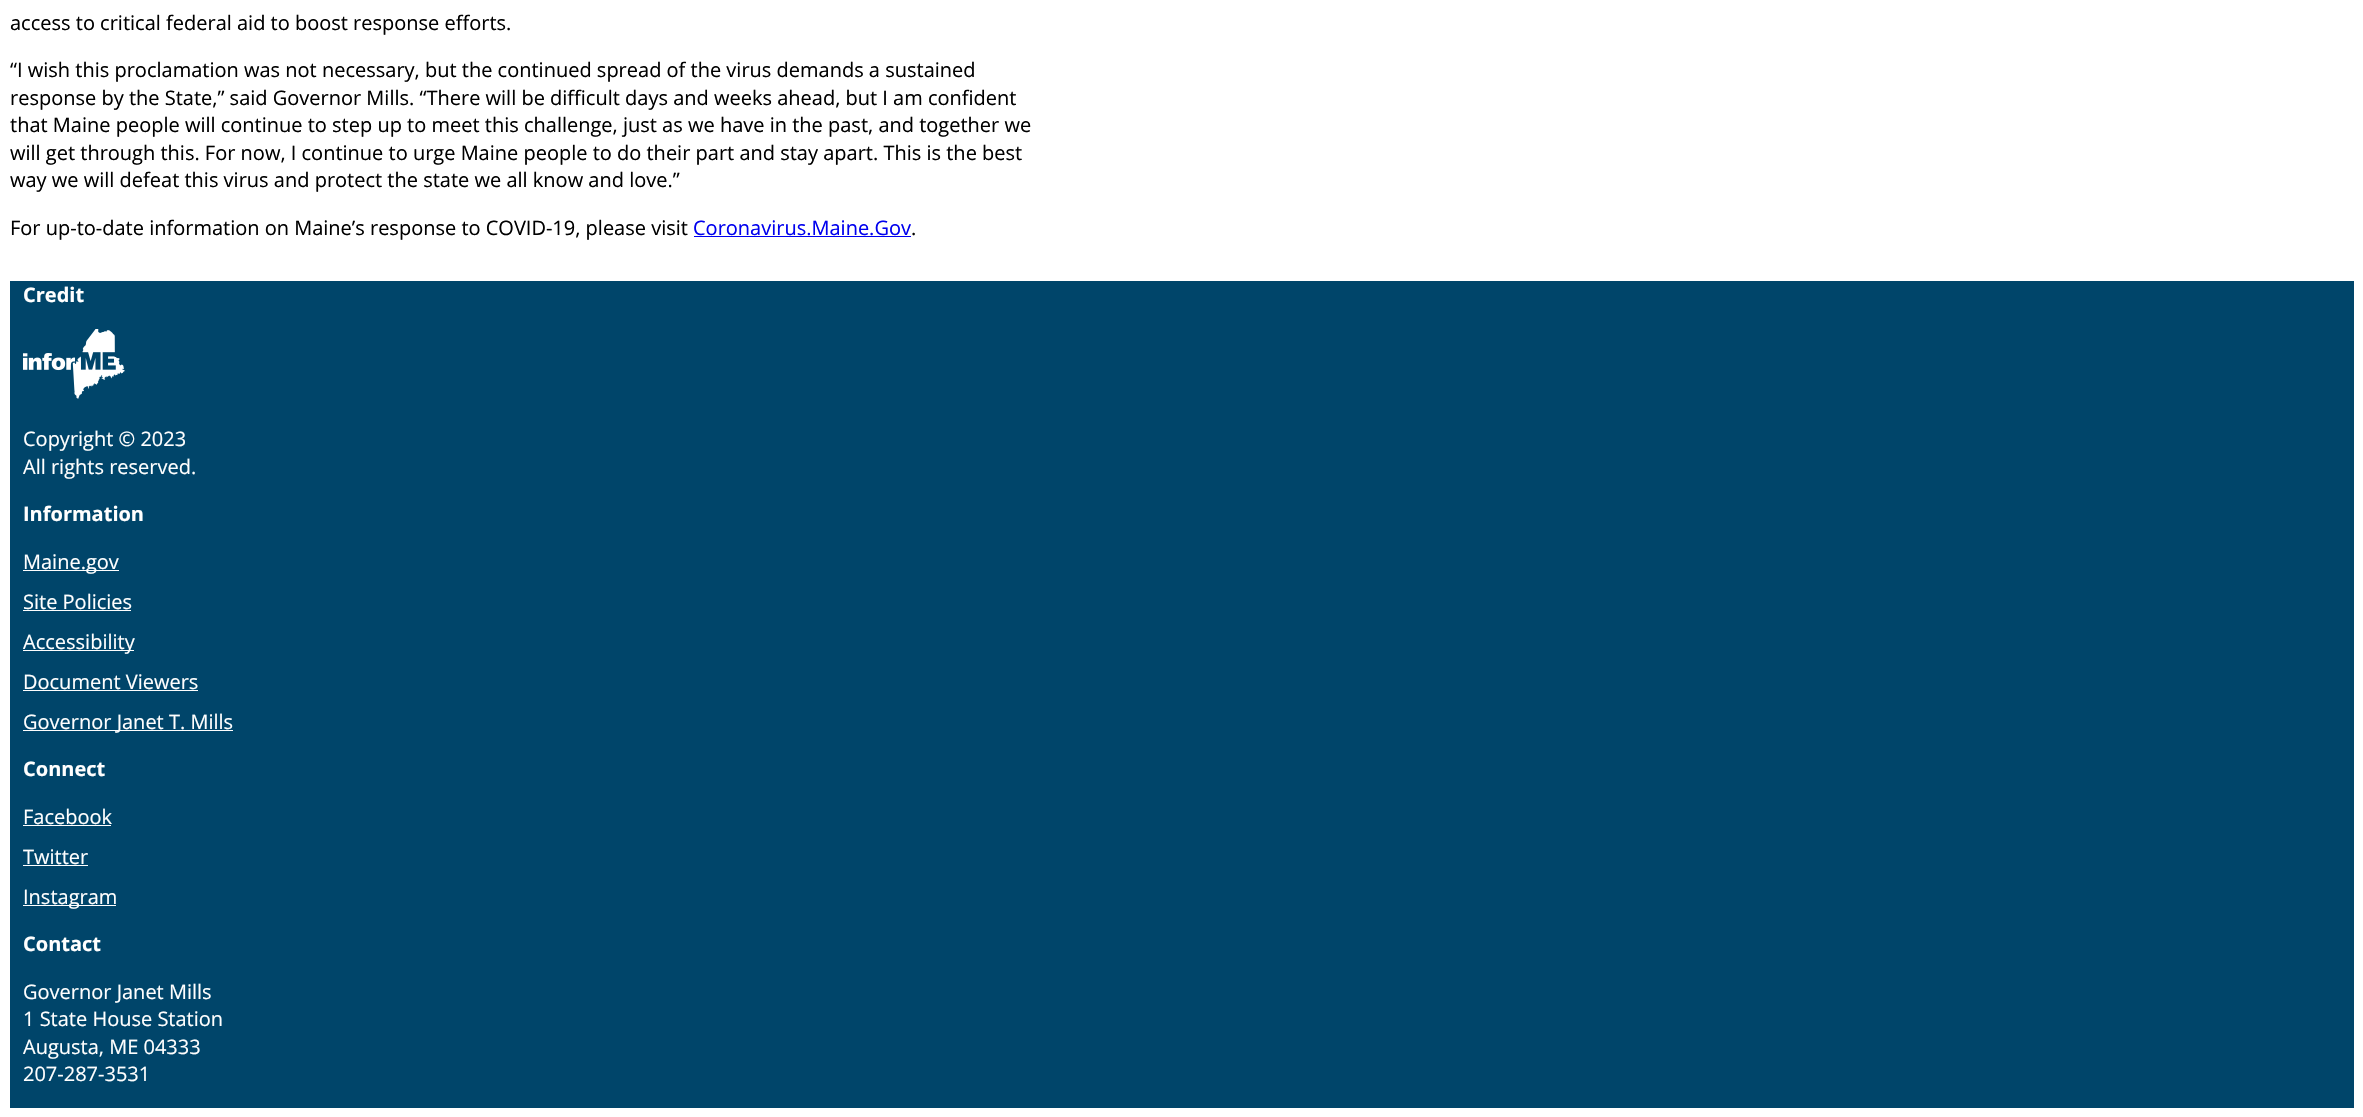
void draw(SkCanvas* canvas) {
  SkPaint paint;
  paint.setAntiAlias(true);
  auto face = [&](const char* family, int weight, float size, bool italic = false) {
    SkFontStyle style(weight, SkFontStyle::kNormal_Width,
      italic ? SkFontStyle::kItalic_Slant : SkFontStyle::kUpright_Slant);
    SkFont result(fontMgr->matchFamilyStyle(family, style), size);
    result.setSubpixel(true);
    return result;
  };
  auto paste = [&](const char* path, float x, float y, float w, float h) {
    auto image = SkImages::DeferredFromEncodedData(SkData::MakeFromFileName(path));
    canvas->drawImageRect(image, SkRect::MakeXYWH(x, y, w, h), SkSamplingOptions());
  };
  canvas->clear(0xffffffff);
  paint.setColor(0xff0000ee);
  canvas->drawRect(SkRect::MakeXYWH(694, 236, 217, 1), paint);
  paint.setColor(0xff00456a);
  canvas->drawRect(SkRect::MakeXYWH(10, 281, 2344, 827), paint);
  paste("img/1.png", 23, 329, 102, 70);
  {
    const struct { float x, y, w, h; SkColor color; } items[] = {
      {23, 570, 96, 1, 0xffffffff},
      {23, 610, 108, 1, 0xffffffff},
      {23, 650, 111, 1, 0xffffffff},
      {23, 690, 175, 1, 0xffffffff},
      {23, 730, 210, 1, 0xffffffff},
      {23, 825, 88, 1, 0xffffffff},
      {23, 865, 65, 1, 0xffffffff},
      {23, 905, 93, 1, 0xffffffff},
    };
    for (auto [x, y, w, h, color] : items) {
      paint.setColor(color);
      canvas->drawRect(SkRect::MakeXYWH(x, y, w, h), paint);
    }
  }
  auto f0 = face("Open Sans", 400, 20);
  paint.setColor(0xff000000);
  {
    const struct { const char* s; float x, y; } items[] = {
      {"access to critical federal aid to boost response efforts.", 10, 30},
      {"“I wish this proclamation was not necessary, but the continued spread of the virus demands a sustained", 10, 77},
      {"response by the State,” said Governor Mills. “There will be difficult days and weeks ahead, but I am confident", 10, 105},
      {"that Maine people will continue to step up to meet this challenge, just as we have in the past, and together we", 10, 132},
      {"will get through this. For now, I continue to urge Maine people to do their part and stay apart. This is the best", 10, 160},
      {"way we will defeat this virus and protect the state we all know and love.”", 10, 187},
      {"For up-to-date information on Maine’s response to COVID-19, please visit", 10, 235},
    };
    for (auto [s, x, y] : items) {
      canvas->drawString(s, x, y, f0, paint);
    }
  }
  paint.setColor(0xff0000ee);
  canvas->drawString("Coronavirus.Maine.Gov", 693, 235, f0, paint);
  paint.setColor(0xff000000);
  canvas->drawString(".", 911, 235, f0, paint);
  auto f1 = face("Open Sans", 700, 20);
  paint.setColor(0xffffffff);
  canvas->drawString("Credit", 23, 302, f1, paint);
  canvas->drawString("Copyright © 2023", 23, 446, f0, paint);
  canvas->drawString("All rights reserved.", 23, 474, f0, paint);
  canvas->drawString("Information", 23, 521, f1, paint);
  {
    const struct { const char* s; float x, y; } items[] = {
      {"Maine.gov", 23, 569},
      {"Site Policies", 23, 609},
      {"Accessibility", 23, 649},
      {"Document Viewers", 23, 689},
      {"Governor Janet T. Mills", 23, 729},
    };
    for (auto [s, x, y] : items) {
      canvas->drawString(s, x, y, f0, paint);
    }
  }
  canvas->drawString("Connect", 23, 776, f1, paint);
  {
    const struct { const char* s; float x, y; } items[] = {
      {"Facebook", 23, 824},
      {"Twitter", 23, 864},
      {"Instagram", 23, 904},
    };
    for (auto [s, x, y] : items) {
      canvas->drawString(s, x, y, f0, paint);
    }
  }
  canvas->drawString("Contact", 23, 951, f1, paint);
  {
    const struct { const char* s; float x, y; } items[] = {
      {"Governor Janet Mills", 23, 999},
      {"1 State House Station", 23, 1026},
      {"Augusta, ME 04333", 23, 1054},
      {"207-287-3531", 23, 1081},
    };
    for (auto [s, x, y] : items) {
      canvas->drawString(s, x, y, f0, paint);
    }
  }
}
